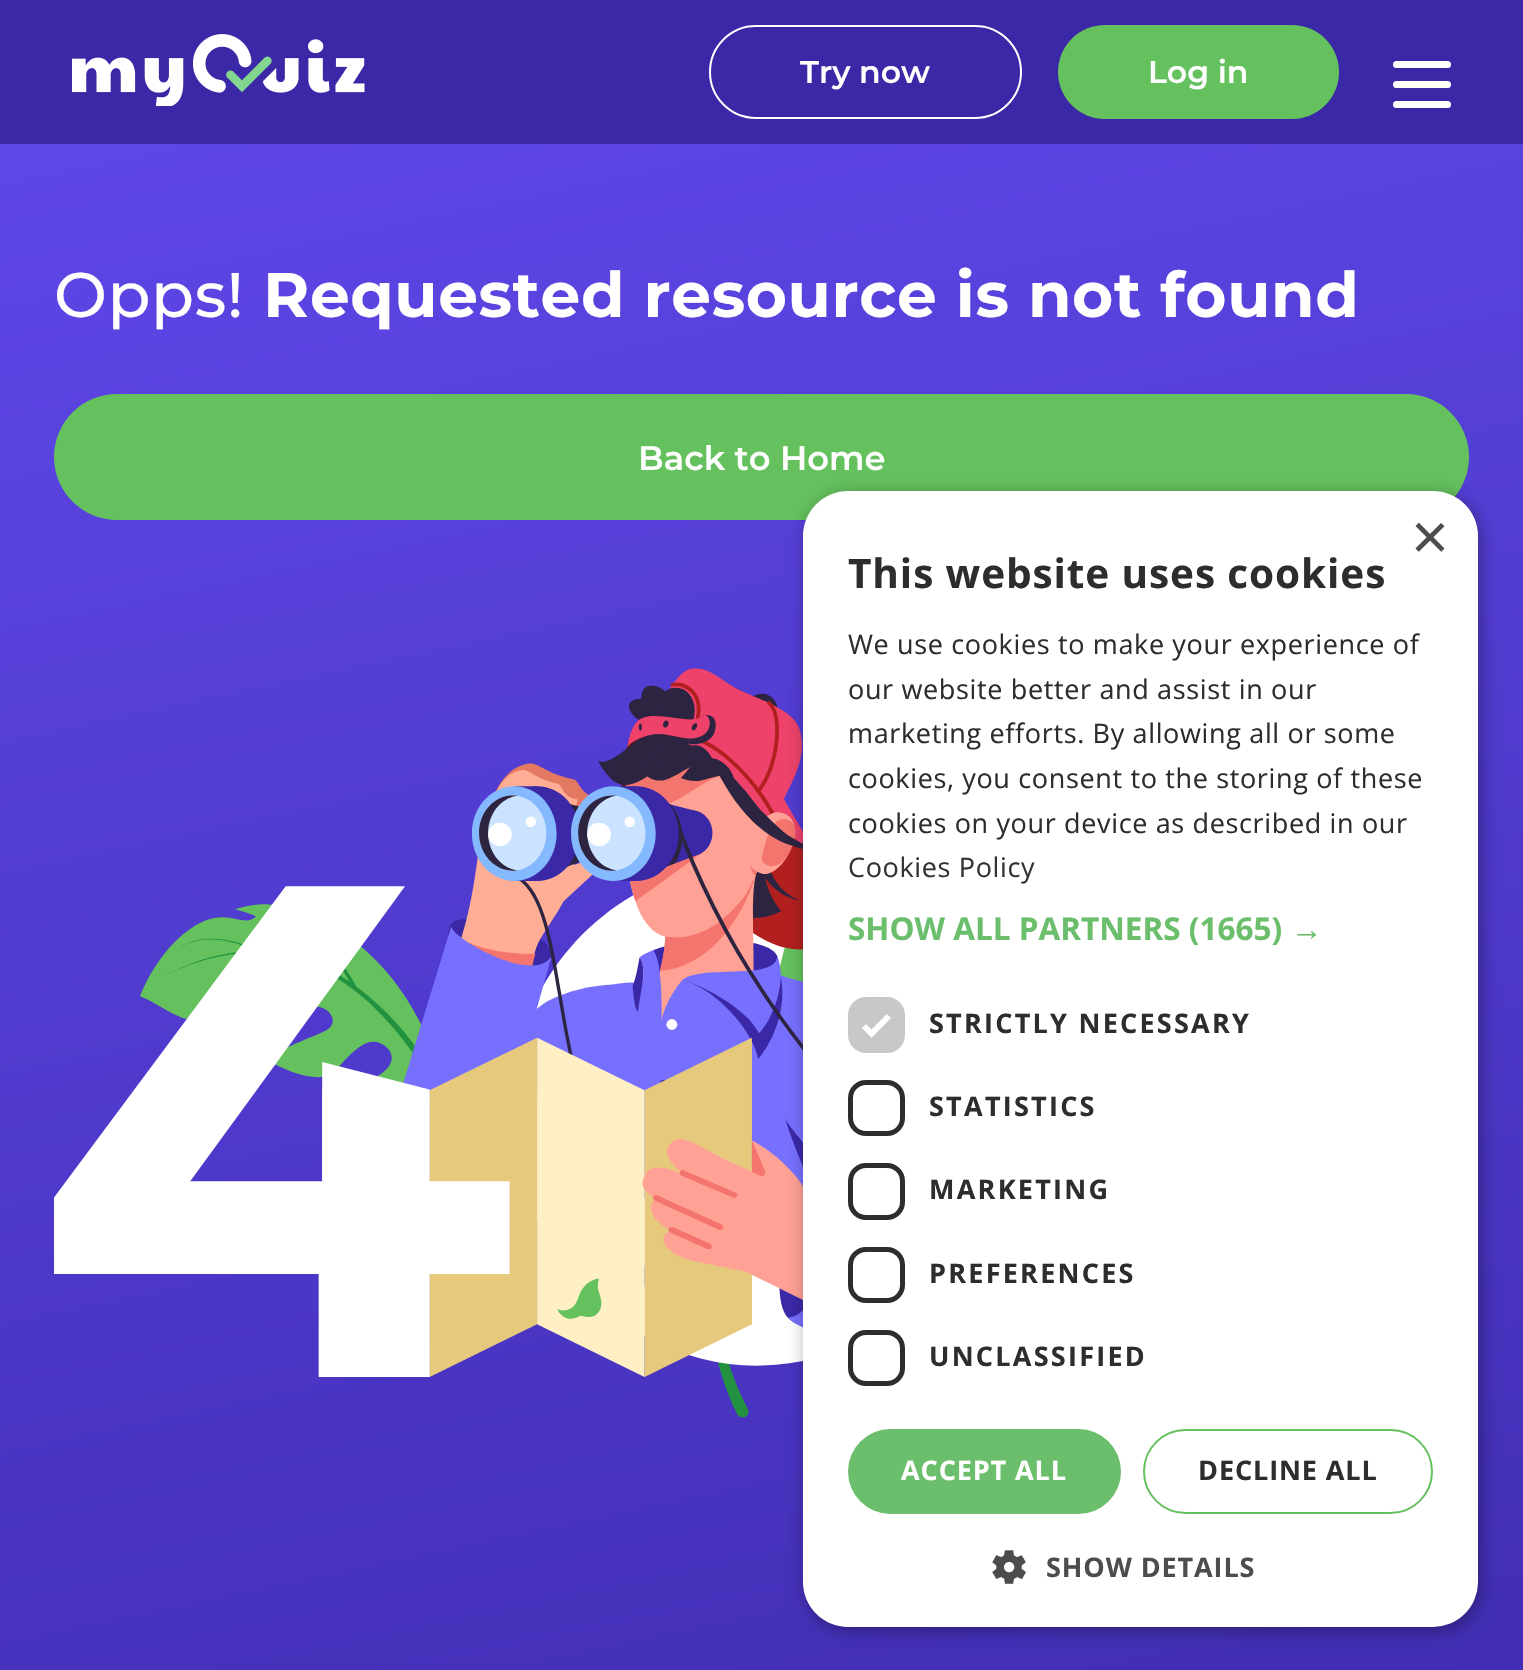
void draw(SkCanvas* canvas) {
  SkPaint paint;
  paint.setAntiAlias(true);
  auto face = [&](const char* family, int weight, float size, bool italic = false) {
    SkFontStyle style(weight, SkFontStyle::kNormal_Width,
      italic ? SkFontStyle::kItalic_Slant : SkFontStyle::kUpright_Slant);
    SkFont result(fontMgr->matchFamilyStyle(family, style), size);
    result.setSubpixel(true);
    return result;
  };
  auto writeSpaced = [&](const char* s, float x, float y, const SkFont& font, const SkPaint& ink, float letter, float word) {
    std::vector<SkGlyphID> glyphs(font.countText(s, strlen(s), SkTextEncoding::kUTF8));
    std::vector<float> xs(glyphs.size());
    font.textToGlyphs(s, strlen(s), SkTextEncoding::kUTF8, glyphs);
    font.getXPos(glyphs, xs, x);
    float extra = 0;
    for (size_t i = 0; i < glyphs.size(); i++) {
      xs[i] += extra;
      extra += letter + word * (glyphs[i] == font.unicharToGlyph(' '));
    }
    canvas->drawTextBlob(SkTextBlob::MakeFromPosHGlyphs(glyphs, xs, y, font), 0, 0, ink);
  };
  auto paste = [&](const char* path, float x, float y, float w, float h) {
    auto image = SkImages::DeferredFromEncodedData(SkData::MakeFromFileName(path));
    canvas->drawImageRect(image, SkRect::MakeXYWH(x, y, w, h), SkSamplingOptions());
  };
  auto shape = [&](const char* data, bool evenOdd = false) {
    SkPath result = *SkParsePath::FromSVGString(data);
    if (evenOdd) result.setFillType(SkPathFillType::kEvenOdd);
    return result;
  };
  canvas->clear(0xffffffff);
  {
    const SkColor colors[] = {0xff3a28a7, 0xff6049eb};
    const float stops[] = {0, 1};
    const SkPoint ends[] = {{1028, 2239}, {530, -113}};
    paint.setShader(SkGradientShader::MakeLinear(ends, colors, stops, 2, SkTileMode::kClamp));
    paint.setAlpha(255);
  }
  canvas->drawRect(SkRect::MakeXYWH(0, 144, 1523, 1526), paint);
  paint.setShader(nullptr);
  paint.setColor(0xff3a28a7);
  canvas->drawRect(SkRect::MakeXYWH(0, 0, 1523, 144), paint);
  paste("img/1.png", 72, 34, 293, 72);
  paint.setStroke(true);
  paint.setStrokeWidth(2);
  paint.setColor(0xffffffff);
  canvas->drawRoundRect(SkRect::MakeXYWH(710, 26, 311, 92), 46, 46, paint);
  paint.setStroke(false);
  paint.setColor(0xff65c15d);
  canvas->drawRoundRect(SkRect::MakeXYWH(1058, 25, 281, 94), 47, 47, paint);
  paint.setColor(0xffffffff);
  canvas->drawRoundRect(SkRect::MakeXYWH(1393, 61, 58, 7), 3.5f, 3.5f, paint);
  canvas->drawRoundRect(SkRect::MakeXYWH(1393, 81, 58, 7), 3.5f, 3.5f, paint);
  canvas->drawRoundRect(SkRect::MakeXYWH(1393, 101, 58, 7), 3.5f, 3.5f, paint);
  paint.setColor(0xff65c15d);
  canvas->drawRoundRect(SkRect::MakeXYWH(54, 394, 1415, 126), 63, 63, paint);
  paste("img/2.png", 54, 668, 749, 750);
  paint.setColor(0x59000000);
  paint.setMaskFilter(SkMaskFilter::MakeBlur(kNormal_SkBlurStyle, 9));
  canvas->drawRoundRect(SkRect::MakeXYWH(806, 495, 675, 1136), 45, 45, paint);
  paint.setMaskFilter(nullptr);
  paint.setColor(0xffffffff);
  canvas->drawRoundRect(SkRect::MakeXYWH(803, 491, 675, 1136), 45, 45, paint);
  paint.setColor(0xffc8c8c8);
  canvas->drawRoundRect(SkRect::MakeXYWH(848, 997, 57, 56), 18, 18, paint);
  paint.setStroke(true);
  paint.setStrokeWidth(5.9f);
  paint.setColor(0xffffffff);
  canvas->drawPath(shape("M864 1026L871.5 1033.5L889 1016"), paint);
  paint.setStrokeWidth(5);
  paint.setColor(0xff2d2d2d);
  canvas->drawRoundRect(SkRect::MakeXYWH(850.5f, 1082.5f, 52, 51), 15.5f, 15.5f, paint);
  canvas->drawRoundRect(SkRect::MakeXYWH(850.5f, 1165.5f, 52, 52), 15.5f, 15.5f, paint);
  canvas->drawRoundRect(SkRect::MakeXYWH(850.5f, 1249.5f, 52, 51), 15.5f, 15.5f, paint);
  canvas->drawRoundRect(SkRect::MakeXYWH(850.5f, 1332.5f, 52, 51), 15.5f, 15.5f, paint);
  paint.setStroke(false);
  paint.setColor(0xff6bbe6b);
  canvas->drawRoundRect(SkRect::MakeXYWH(848, 1429, 273, 85), 42.5f, 42.5f, paint);
  paint.setStroke(true);
  paint.setStrokeWidth(2);
  paint.setColor(0xff65c15d);
  canvas->drawRoundRect(SkRect::MakeXYWH(1144, 1430, 288, 83), 41.5f, 41.5f, paint);
  paste("img/3.png", 992, 1550, 34, 34);
  auto f0 = face("Montserrat", 600, 31.5f);
  paint.setStroke(false);
  paint.setColor(0xffffffff);
  canvas->drawString("Try now", 800, 83, f0, paint);
  canvas->drawString("Log in", 1148, 83, f0, paint);
  auto f1 = face("Montserrat", 500, 63);
  writeSpaced("Opps!", 54, 317, f1, paint, 0.6f, 0);
  auto f2 = face("Montserrat", 700, 63);
  writeSpaced("Requested resource is not found", 263, 317, f2, paint, 0.6f, 0);
  auto f3 = face("Montserrat", 600, 33.75f);
  canvas->drawString("Back to Home", 638, 470, f3, paint);
  auto f4 = face("Liberation Sans", 400, 65);
  paint.setColor(0xff4d4d4d);
  canvas->drawString("×", 1411, 559, f4, paint);
  auto f5 = face("Open Sans", 700, 40.5f);
  paint.setColor(0xff2d2d2d);
  writeSpaced("This website uses cookies", 848, 588, f5, paint, 0.9f, 0);
  auto f6 = face("Open Sans", 400, 27);
  {
    const struct { const char* s; float x, y; } items[] = {
      {"We use cookies to make your experience of", 848, 654},
      {"our website better and assist in our", 848, 699},
      {"marketing efforts. By allowing all or some", 848, 743},
      {"cookies, you consent to the storing of these", 848, 788},
      {"cookies on your device as described in our", 848, 833},
    };
    for (auto [s, x, y] : items) {
      writeSpaced(s, x, y, f6, paint, 0.65f, 0);
    }
  }
  paint.setColor(0xff333333);
  writeSpaced("Cookies Policy", 848, 877, f6, paint, 0.65f, 0);
  auto f7 = face("Open Sans", 700, 31.5f);
  paint.setColor(0xff6bbe6b);
  canvas->drawString("SHOW ALL PARTNERS (1665)", 848, 940, f7, paint);
  auto f8 = face("Liberation Sans", 700, 31.5f);
  canvas->drawString("→", 1291, 940, f8, paint);
  auto f9 = face("Open Sans", 700, 27);
  paint.setColor(0xff2d2d2d);
  {
    const struct { const char* s; float x, y; } items[] = {
      {"STRICTLY NECESSARY", 929, 1033},
      {"STATISTICS", 929, 1116},
      {"MARKETING", 929, 1199},
      {"PREFERENCES", 929, 1283},
      {"UNCLASSIFIED", 929, 1366},
    };
    for (auto [s, x, y] : items) {
      writeSpaced(s, x, y, f9, paint, 2.25f, 0);
    }
  }
  paint.setColor(0xffffffff);
  writeSpaced("ACCEPT ALL", 901, 1480, f9, paint, 0.9f, 0);
  paint.setColor(0xff2d2d2d);
  writeSpaced("DECLINE ALL", 1198, 1480, f9, paint, 0.9f, 0);
  paint.setColor(0xff4d4d4d);
  writeSpaced("SHOW DETAILS", 1046, 1577, f9, paint, 0.9f, 0);
}
